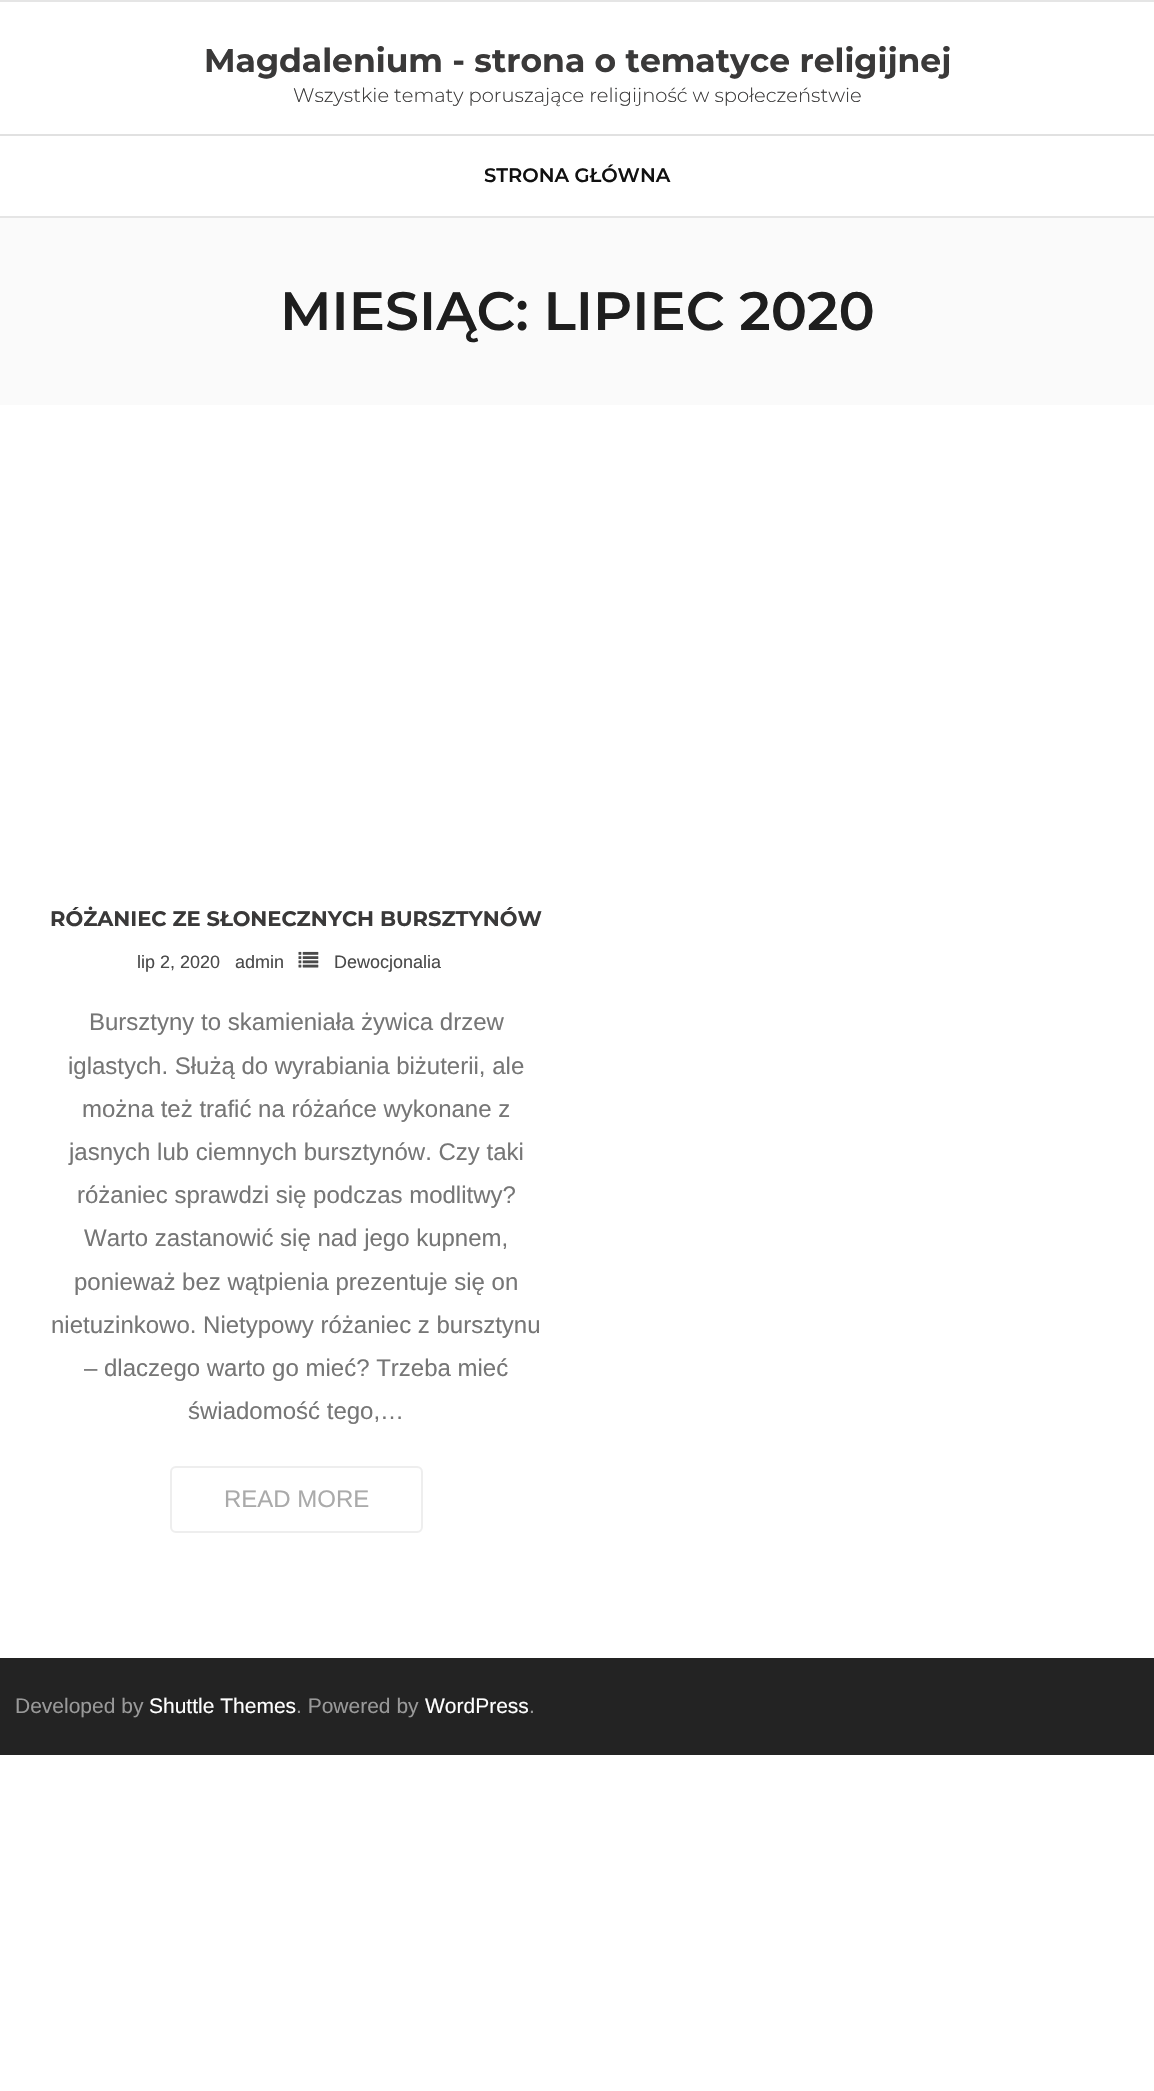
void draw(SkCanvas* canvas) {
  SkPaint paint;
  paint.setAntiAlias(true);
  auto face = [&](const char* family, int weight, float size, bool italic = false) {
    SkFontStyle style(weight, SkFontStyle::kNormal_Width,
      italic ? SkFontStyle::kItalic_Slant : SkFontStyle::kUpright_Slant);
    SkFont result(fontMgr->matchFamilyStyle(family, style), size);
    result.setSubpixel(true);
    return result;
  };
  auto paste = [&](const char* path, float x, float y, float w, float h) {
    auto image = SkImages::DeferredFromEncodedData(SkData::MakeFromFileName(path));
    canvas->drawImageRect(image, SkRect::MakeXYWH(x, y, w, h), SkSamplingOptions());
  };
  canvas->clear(0xffffffff);
  {
    const struct { float x, y, w, h; SkColor color; } items[] = {
      {0, 0, 1154, 2, 0xffe5e5e5},
      {0, 216, 1154, 2, 0xffe5e5e5},
      {0, 134, 1154, 2, 0xffe1e1e1},
      {0, 218, 1154, 187, 0xfffafafa},
    };
    for (auto [x, y, w, h, color] : items) {
      paint.setColor(color);
      canvas->drawRect(SkRect::MakeXYWH(x, y, w, h), paint);
    }
  }
  paste("img/1.png", 298, 951, 21, 17);
  paint.setStroke(true);
  paint.setStrokeWidth(2);
  paint.setColor(0xffeeeeee);
  canvas->drawRoundRect(SkRect::MakeXYWH(171, 1467, 251, 65), 5, 5, paint);
  paint.setStroke(false);
  paint.setColor(0xff232323);
  canvas->drawRect(SkRect::MakeXYWH(0, 1658, 1154, 97), paint);
  auto f0 = face("Montserrat", 700, 33);
  paint.setColor(0xff3a3939);
  canvas->drawString("Magdalenium - strona o tematyce religijnej", 204, 72, f0, paint);
  auto f1 = face("Montserrat", 300, 19.5f);
  canvas->drawString("Wszystkie tematy poruszające religijność w społeczeństwie", 293, 102, f1, paint);
  auto f2 = face("Montserrat", 600, 19.5f);
  paint.setColor(0xff111111);
  canvas->drawString("STRONA GŁÓWNA", 484, 182, f2, paint);
  auto f3 = face("Montserrat", 600, 54);
  paint.setColor(0xff1e1e1e);
  canvas->drawString("MIESIĄC: LIPIEC 2020", 280, 330, f3, paint);
  auto f4 = face("Montserrat", 700, 21);
  paint.setColor(0xff3a3939);
  canvas->drawString("RÓŻANIEC ZE SŁONECZNYCH BURSZTYNÓW", 50, 926, f4, paint);
  auto f5 = face("Liberation Sans", 400, 18);
  paint.setColor(0xff4a4a4a);
  {
    const struct { const char* s; float x, y; } items[] = {
      {"lip 2, 2020", 137, 968},
      {"admin", 235, 968},
      {"Dewocjonalia", 334, 968},
    };
    for (auto [s, x, y] : items) {
      canvas->drawString(s, x, y, f5, paint);
    }
  }
  auto f6 = face("Liberation Sans", 400, 24);
  paint.setColor(0xff767676);
  {
    const struct { const char* s; float x, y; } items[] = {
      {"Bursztyny to skamieniała żywica drzew", 89, 1030},
      {"iglastych. Służą do wyrabiania biżuterii, ale", 68, 1074},
      {"można też trafić na różańce wykonane z", 82, 1117},
      {"jasnych lub ciemnych bursztynów. Czy taki", 69, 1160},
      {"różaniec sprawdzi się podczas modlitwy?", 77, 1203},
      {"Warto zastanowić się nad jego kupnem,", 84, 1246},
      {"ponieważ bez wątpienia prezentuje się on", 74, 1290},
      {"nietuzinkowo. Nietypowy różaniec z bursztynu", 51, 1333},
      {"– dlaczego warto go mieć? Trzeba mieć", 84, 1376},
      {"świadomość tego,…", 188, 1419},
    };
    for (auto [s, x, y] : items) {
      canvas->drawString(s, x, y, f6, paint);
    }
  }
  paint.setColor(0xffaaaaaa);
  canvas->drawString("READ MORE", 224, 1507, f6, paint);
  auto f7 = face("Liberation Sans", 400, 21);
  paint.setColor(0xff999999);
  canvas->drawString("Developed by", 15, 1713, f7, paint);
  paint.setColor(0xffffffff);
  canvas->drawString("Shuttle Themes", 149, 1713, f7, paint);
  paint.setColor(0xff999999);
  canvas->drawString(". Powered by", 296, 1713, f7, paint);
  paint.setColor(0xffffffff);
  canvas->drawString("WordPress", 425, 1713, f7, paint);
  paint.setColor(0xff999999);
  canvas->drawString(".", 529, 1713, f7, paint);
}
